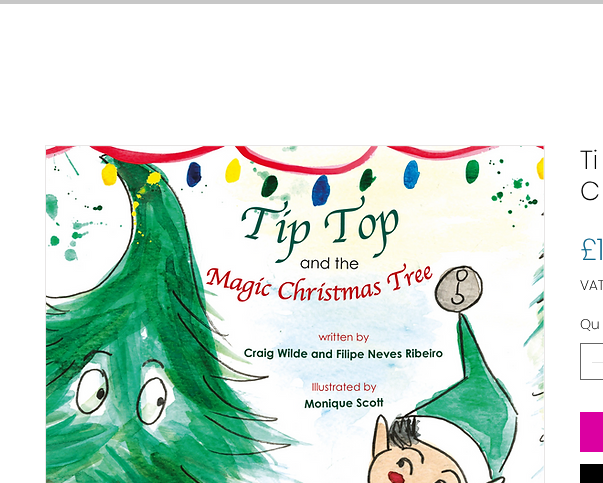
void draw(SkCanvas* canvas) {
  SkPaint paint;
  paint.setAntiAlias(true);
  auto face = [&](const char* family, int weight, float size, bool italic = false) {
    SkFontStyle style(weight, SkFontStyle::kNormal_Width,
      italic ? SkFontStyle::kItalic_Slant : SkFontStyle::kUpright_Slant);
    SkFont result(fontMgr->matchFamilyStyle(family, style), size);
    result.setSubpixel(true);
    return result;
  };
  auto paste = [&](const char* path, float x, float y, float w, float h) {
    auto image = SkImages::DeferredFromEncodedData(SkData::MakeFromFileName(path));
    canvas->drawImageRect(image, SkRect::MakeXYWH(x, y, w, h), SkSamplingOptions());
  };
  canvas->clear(0xffffffff);
  paint.setColor(0xffc7c7c7);
  canvas->drawRect(SkRect::MakeXYWH(0, 0, 603, 4), paint);
  paint.setStroke(true);
  paint.setStrokeWidth(1);
  paint.setColor(0xffe8e6e6);
  canvas->drawRect(SkRect::MakeXYWH(45.5f, 145.5f, 499, 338), paint);
  paste("img/1.png", 46, 146, 498, 337);
  paint.setColor(0xff666666);
  canvas->drawRect(SkRect::MakeXYWH(580.5f, 343.5f, 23, 36), paint);
  paint.setStroke(false);
  {
    const struct { float x, y, w, h; SkColor color; } items[] = {
      {592, 362, 11, 1, 0xffe3e3e3},
      {580, 412, 23, 40, 0xffdb00a1},
      {580, 464, 23, 19, 0xff000000},
    };
    for (auto [x, y, w, h, color] : items) {
      paint.setColor(color);
      canvas->drawRect(SkRect::MakeXYWH(x, y, w, h), paint);
    }
  }
  auto f0 = face("Poppins", 200, 26);
  canvas->drawString("Ti", 580, 169, f0, paint);
  canvas->drawString("C", 580, 200, f0, paint);
  auto f1 = face("Poppins", 200, 30);
  paint.setColor(0xff08638b);
  canvas->drawString("£1", 580, 260, f1, paint);
  auto f2 = face("Poppins", 200, 14);
  paint.setColor(0xff000000);
  canvas->drawString("VAT", 580, 290, f2, paint);
  canvas->drawString("Qu", 580, 329, f2, paint);
}
